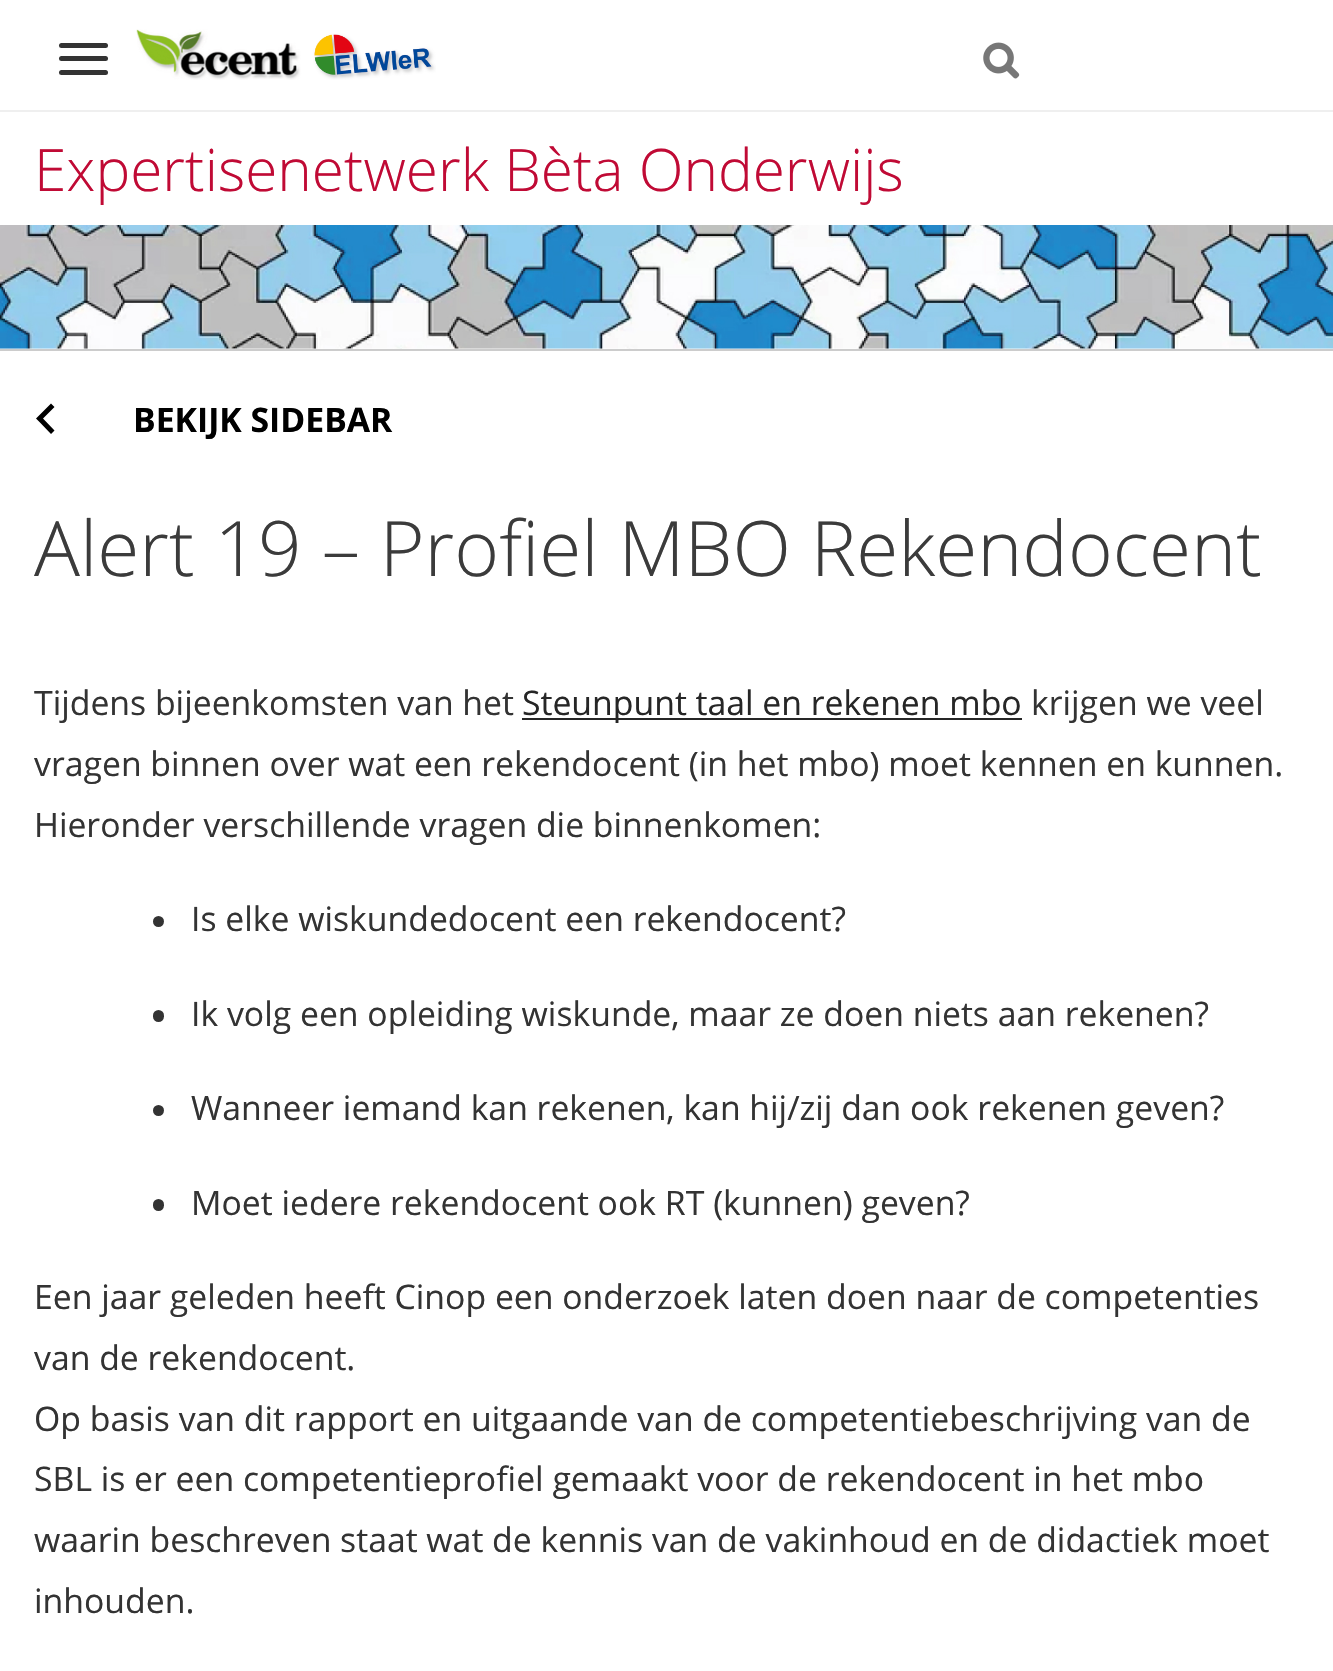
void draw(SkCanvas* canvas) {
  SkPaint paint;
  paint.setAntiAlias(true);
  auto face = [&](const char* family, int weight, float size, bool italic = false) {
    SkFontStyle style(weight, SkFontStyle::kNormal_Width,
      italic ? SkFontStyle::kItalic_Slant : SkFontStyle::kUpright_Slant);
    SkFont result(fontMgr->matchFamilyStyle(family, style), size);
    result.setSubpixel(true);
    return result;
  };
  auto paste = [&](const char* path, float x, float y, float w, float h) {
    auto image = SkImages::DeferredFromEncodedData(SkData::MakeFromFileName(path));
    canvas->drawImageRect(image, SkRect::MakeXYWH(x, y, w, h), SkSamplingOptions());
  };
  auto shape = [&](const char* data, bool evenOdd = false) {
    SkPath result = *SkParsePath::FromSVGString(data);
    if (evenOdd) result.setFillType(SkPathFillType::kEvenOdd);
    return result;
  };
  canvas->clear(0xffffffff);
  paint.setColor(0xffefefef);
  canvas->drawRect(SkRect::MakeXYWH(0, 110, 1333, 2), paint);
  paint.setColor(0xff333333);
  canvas->drawRoundRect(SkRect::MakeXYWH(59, 43, 49, 5), 2.5f, 2.5f, paint);
  canvas->drawRoundRect(SkRect::MakeXYWH(59, 56, 49, 5), 2.5f, 2.5f, paint);
  canvas->drawRoundRect(SkRect::MakeXYWH(59, 70, 49, 5), 2.5f, 2.5f, paint);
  paste("img/1.png", 136, 29, 300, 51);
  paste("img/2.png", 983, 42, 37, 37);
  paint.setColor(0xffcccccc);
  canvas->drawRect(SkRect::MakeXYWH(0, 349, 1333, 2), paint);
  paste("img/3.png", 0, 225, 1333, 124);
  paint.setColor(0xff000000);
  canvas->drawPath(shape("M39.5 422L51 434L54.5 430.5L43 418.5L54.5 407L51 403.5L36 418.5Z"), paint);
  paint.setColor(0xff262626);
  canvas->drawRect(SkRect::MakeXYWH(522, 718, 500, 2), paint);
  paint.setColor(0xff333333);
  canvas->drawCircle(158.5f, 921.5f, 5.5f, paint);
  canvas->drawRoundRect(SkRect::MakeXYWH(153, 1010, 11, 12), 5.5f, 5.5f, paint);
  canvas->drawCircle(158.5f, 1110.5f, 5.5f, paint);
  canvas->drawRoundRect(SkRect::MakeXYWH(153, 1199, 11, 12), 5.5f, 5.5f, paint);
  auto f0 = face("Open Sans", 300, 58.5f);
  paint.setColor(0xffc00a35);
  canvas->drawString("Expertisenetwerk Bèta Onderwijs", 34, 191, f0, paint);
  auto f1 = face("Open Sans", 700, 33.75f);
  paint.setColor(0xff000000);
  canvas->drawString("BEKIJK SIDEBAR", 133, 432, f1, paint);
  auto f2 = face("Open Sans", 300, 76.5f);
  paint.setColor(0xff3b3b3b);
  canvas->drawString("Alert 19 – Profiel MBO Rekendocent", 34, 576, f2, paint);
  auto f3 = face("Open Sans", 400, 33.75f);
  paint.setColor(0xff333333);
  canvas->drawString("Tijdens bijeenkomsten van het", 34, 715, f3, paint);
  paint.setColor(0xff262626);
  canvas->drawString("Steunpunt taal en rekenen mbo", 522, 715, f3, paint);
  paint.setColor(0xff333333);
  {
    const struct { const char* s; float x, y; } items[] = {
      {"krijgen we veel", 1031, 715},
      {"vragen binnen over wat een rekendocent (in het mbo) moet kennen en kunnen.", 34, 776},
      {"Hieronder verschillende vragen die binnenkomen:", 34, 837},
      {"Is elke wiskundedocent een rekendocent?", 191, 931},
      {"Ik volg een opleiding wiskunde, maar ze doen niets aan rekenen?", 191, 1026},
      {"Wanneer iemand kan rekenen, kan hij/zij dan ook rekenen geven?", 191, 1120},
      {"Moet iedere rekendocent ook RT (kunnen) geven?", 191, 1215},
      {"Een jaar geleden heeft Cinop een onderzoek laten doen naar de competenties", 34, 1309},
      {"van de rekendocent.", 34, 1370},
      {"Op basis van dit rapport en uitgaande van de competentiebeschrijving van de", 34, 1431},
      {"SBL is er een competentieprofiel gemaakt voor de rekendocent in het mbo", 34, 1491},
      {"waarin beschreven staat wat de kennis van de vakinhoud en de didactiek moet", 34, 1552},
      {"inhouden.", 34, 1613},
    };
    for (auto [s, x, y] : items) {
      canvas->drawString(s, x, y, f3, paint);
    }
  }
}
